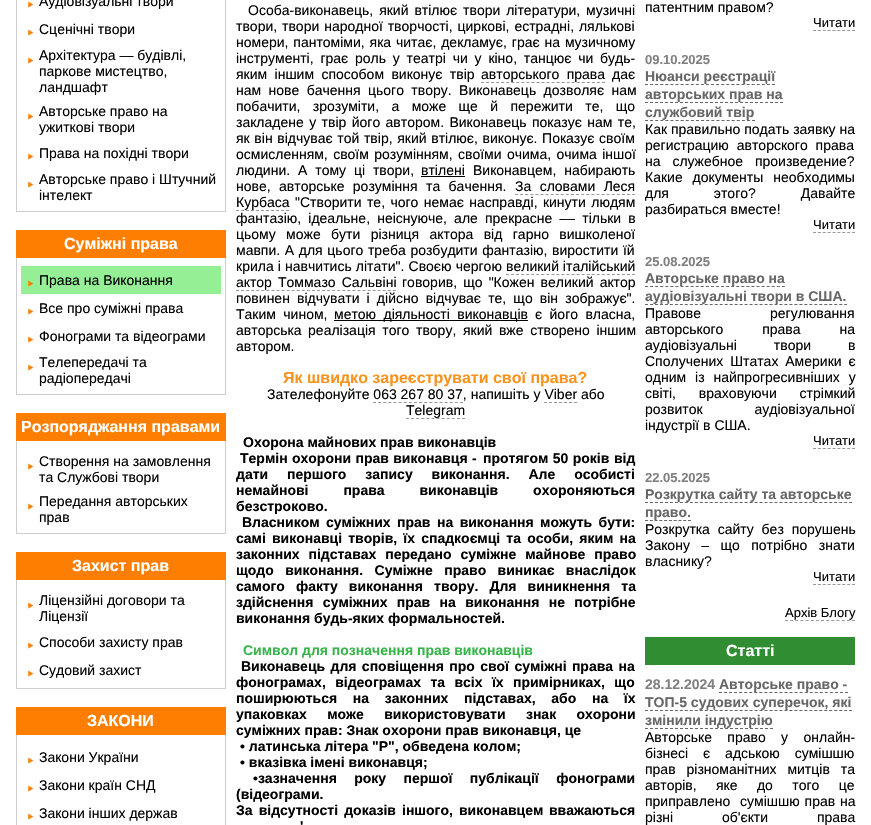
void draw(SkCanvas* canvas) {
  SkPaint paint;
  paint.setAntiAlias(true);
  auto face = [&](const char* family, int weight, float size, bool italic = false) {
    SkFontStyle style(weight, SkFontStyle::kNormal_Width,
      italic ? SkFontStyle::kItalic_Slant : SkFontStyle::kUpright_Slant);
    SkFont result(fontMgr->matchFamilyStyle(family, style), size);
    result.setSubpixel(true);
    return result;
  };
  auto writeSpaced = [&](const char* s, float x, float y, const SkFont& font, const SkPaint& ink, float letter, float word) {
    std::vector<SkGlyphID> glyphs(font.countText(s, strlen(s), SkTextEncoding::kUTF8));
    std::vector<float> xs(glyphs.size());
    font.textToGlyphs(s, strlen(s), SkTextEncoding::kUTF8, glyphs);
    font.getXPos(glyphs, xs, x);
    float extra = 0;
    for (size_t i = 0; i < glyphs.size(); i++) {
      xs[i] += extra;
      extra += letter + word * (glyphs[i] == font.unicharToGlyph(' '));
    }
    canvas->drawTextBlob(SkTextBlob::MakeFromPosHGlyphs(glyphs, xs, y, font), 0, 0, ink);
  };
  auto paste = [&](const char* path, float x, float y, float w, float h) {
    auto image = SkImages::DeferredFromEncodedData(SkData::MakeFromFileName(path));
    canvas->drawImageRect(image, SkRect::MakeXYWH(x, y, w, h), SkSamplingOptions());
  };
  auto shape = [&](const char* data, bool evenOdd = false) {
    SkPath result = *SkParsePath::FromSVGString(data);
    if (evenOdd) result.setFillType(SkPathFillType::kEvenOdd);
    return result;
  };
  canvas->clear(0xffffffff);
  {
    const struct { float x, y, w, h; SkColor color; } items[] = {
      {225, 0, 1, 212, 0xffcccdce},
      {16, 211, 210, 1, 0xffcccdce},
      {16, 0, 1, 212, 0xffcccdce},
    };
    for (auto [x, y, w, h, color] : items) {
      paint.setColor(color);
      canvas->drawRect(SkRect::MakeXYWH(x, y, w, h), paint);
    }
  }
  paste("img/1.png", 28, 1, 6, 7);
  paste("img/1.png", 28, 29, 6, 7);
  paste("img/1.png", 28, 57, 6, 7);
  paste("img/1.png", 28, 113, 6, 7);
  paste("img/1.png", 28, 153, 6, 7);
  paste("img/1.png", 28, 181, 6, 7);
  {
    const struct { float x, y, w, h; SkColor color; } items[] = {
      {16, 230, 210, 28, 0xfffe7e01},
      {225, 258, 1, 137, 0xffcccdce},
      {16, 394, 210, 1, 0xffcccdce},
      {16, 258, 1, 137, 0xffcccdce},
      {21, 266, 200, 28, 0xff95f095},
    };
    for (auto [x, y, w, h, color] : items) {
      paint.setColor(color);
      canvas->drawRect(SkRect::MakeXYWH(x, y, w, h), paint);
    }
  }
  paste("img/2.png", 28, 280, 6, 7);
  paste("img/1.png", 28, 308, 6, 7);
  paste("img/1.png", 28, 336, 6, 7);
  paste("img/1.png", 28, 364, 6, 7);
  {
    const struct { float x, y, w, h; SkColor color; } items[] = {
      {16, 413, 210, 28, 0xfffe7e01},
      {225, 441, 1, 93, 0xffcccdce},
      {16, 533, 210, 1, 0xffcccdce},
      {16, 441, 1, 93, 0xffcccdce},
    };
    for (auto [x, y, w, h, color] : items) {
      paint.setColor(color);
      canvas->drawRect(SkRect::MakeXYWH(x, y, w, h), paint);
    }
  }
  paste("img/1.png", 28, 463, 6, 7);
  paste("img/1.png", 28, 503, 6, 7);
  {
    const struct { float x, y, w, h; SkColor color; } items[] = {
      {16, 552, 210, 28, 0xfffe7e01},
      {225, 580, 1, 109, 0xffcccdce},
      {16, 688, 210, 1, 0xffcccdce},
      {16, 580, 1, 109, 0xffcccdce},
    };
    for (auto [x, y, w, h, color] : items) {
      paint.setColor(color);
      canvas->drawRect(SkRect::MakeXYWH(x, y, w, h), paint);
    }
  }
  paste("img/1.png", 28, 602, 6, 7);
  paste("img/1.png", 28, 642, 6, 7);
  paste("img/1.png", 28, 670, 6, 7);
  {
    const struct { float x, y, w, h; SkColor color; } items[] = {
      {16, 707, 210, 28, 0xfffe7e01},
      {225, 735, 1, 90, 0xffcccdce},
      {16, 735, 1, 90, 0xffcccdce},
    };
    for (auto [x, y, w, h, color] : items) {
      paint.setColor(color);
      canvas->drawRect(SkRect::MakeXYWH(x, y, w, h), paint);
    }
  }
  paste("img/1.png", 28, 757, 6, 7);
  paste("img/1.png", 28, 785, 6, 7);
  paste("img/1.png", 28, 813, 6, 7);
  paint.setStroke(true);
  paint.setStrokeWidth(1);
  paint.setColor(0xff999999);
  paint.setPathEffect(SkDashPathEffect::Make({{3, 2.04f}}, 0));
  canvas->drawPath(shape("M481 82.5H605"), paint);
  paint.setPathEffect(nullptr);
  paint.setStroke(false);
  paint.setColor(0xff000000);
  canvas->drawRect(SkRect::MakeXYWH(421, 176, 44, 1), paint);
  paint.setStroke(true);
  paint.setColor(0xff999999);
  paint.setPathEffect(SkDashPathEffect::Make({{3, 2.09f}}, 0));
  canvas->drawPath(shape("M515 194.5H635"), paint);
  paint.setPathEffect(nullptr);
  paint.setPathEffect(SkDashPathEffect::Make({{3, 2}}, 0));
  canvas->drawPath(shape("M236 210.5H289"), paint);
  paint.setPathEffect(nullptr);
  paint.setPathEffect(SkDashPathEffect::Make({{3, 2.04f}}, 0));
  canvas->drawPath(shape("M506 274.5H635"), paint);
  paint.setPathEffect(nullptr);
  paint.setPathEffect(SkDashPathEffect::Make({{3, 2.06f}}, 0));
  canvas->drawPath(shape("M236 290.5H396"), paint);
  paint.setPathEffect(nullptr);
  paint.setStroke(false);
  paint.setColor(0xff000000);
  canvas->drawRect(SkRect::MakeXYWH(334, 320, 194, 1), paint);
  paint.setStroke(true);
  paint.setColor(0xff999999);
  paint.setPathEffect(SkDashPathEffect::Make({{3, 2.12f}}, 0));
  canvas->drawPath(shape("M373 402.5H463"), paint);
  paint.setPathEffect(nullptr);
  paint.setPathEffect(SkDashPathEffect::Make({{3, 2}}, 0));
  canvas->drawPath(shape("M544 402.5H577"), paint);
  paint.setPathEffect(nullptr);
  paint.setPathEffect(SkDashPathEffect::Make({{3, 2.09f}}, 0));
  canvas->drawPath(shape("M406 418.5H465"), paint);
  paint.setPathEffect(nullptr);
  paint.setPathEffect(SkDashPathEffect::Make({{3, 1.88f}}, 0));
  canvas->drawPath(shape("M813 30.5H855"), paint);
  paint.setPathEffect(nullptr);
  paint.setColor(0xff666666);
  paint.setPathEffect(SkDashPathEffect::Make({{3, 2.08f}}, 0));
  canvas->drawPath(shape("M645 84.5H775"), paint);
  paint.setPathEffect(nullptr);
  paint.setPathEffect(SkDashPathEffect::Make({{3, 2}}, 0));
  canvas->drawPath(shape("M645 102.5H783"), paint);
  paint.setPathEffect(nullptr);
  paint.setPathEffect(SkDashPathEffect::Make({{3, 2.1f}}, 0));
  canvas->drawPath(shape("M645 120.5H755"), paint);
  paint.setPathEffect(nullptr);
  paint.setColor(0xff999999);
  paint.setPathEffect(SkDashPathEffect::Make({{3, 1.88f}}, 0));
  canvas->drawPath(shape("M813 232.5H855"), paint);
  paint.setPathEffect(nullptr);
  paint.setColor(0xff666666);
  paint.setPathEffect(SkDashPathEffect::Make({{3, 2.07f}}, 0));
  canvas->drawPath(shape("M645 286.5H785"), paint);
  paint.setPathEffect(nullptr);
  paint.setPathEffect(SkDashPathEffect::Make({{3, 1.98f}}, 0));
  canvas->drawPath(shape("M645 304.5H847"), paint);
  paint.setPathEffect(nullptr);
  paint.setColor(0xff999999);
  paint.setPathEffect(SkDashPathEffect::Make({{3, 1.88f}}, 0));
  canvas->drawPath(shape("M813 448.5H855"), paint);
  paint.setPathEffect(nullptr);
  paint.setColor(0xff666666);
  paint.setPathEffect(SkDashPathEffect::Make({{3, 1.98f}}, 0));
  canvas->drawPath(shape("M645 502.5H852"), paint);
  paint.setPathEffect(nullptr);
  paint.setPathEffect(SkDashPathEffect::Make({{3, 1.78f}}, 0));
  canvas->drawPath(shape("M645 520.5H691"), paint);
  paint.setPathEffect(nullptr);
  paint.setColor(0xff999999);
  paint.setPathEffect(SkDashPathEffect::Make({{3, 1.88f}}, 0));
  canvas->drawPath(shape("M813 584.5H855"), paint);
  paint.setPathEffect(nullptr);
  paint.setPathEffect(SkDashPathEffect::Make({{3, 2.15f}}, 0));
  canvas->drawPath(shape("M785 620.5H855"), paint);
  paint.setPathEffect(nullptr);
  paint.setStroke(false);
  paint.setColor(0xff318d31);
  canvas->drawRect(SkRect::MakeXYWH(645, 637, 210, 28), paint);
  paint.setStroke(true);
  paint.setColor(0xff666666);
  paint.setPathEffect(SkDashPathEffect::Make({{3, 2.04f}}, 0));
  canvas->drawPath(shape("M719 692.5H848"), paint);
  paint.setPathEffect(nullptr);
  paint.setPathEffect(SkDashPathEffect::Make({{3, 1.98f}}, 0));
  canvas->drawPath(shape("M645 710.5H852"), paint);
  paint.setPathEffect(nullptr);
  paint.setPathEffect(SkDashPathEffect::Make({{3, 2}}, 0));
  canvas->drawPath(shape("M645 728.5H773"), paint);
  paint.setPathEffect(nullptr);
  auto f0 = face("Liberation Sans", 400, 14);
  paint.setStroke(false);
  paint.setColor(0xff000000);
  {
    const struct { const char* s; float x, y; } items[] = {
      {"Аудіовізуальні твори", 39, 6},
      {"Сценічні твори", 39, 34},
      {"Архітектура — будівлі,", 39, 60},
      {"паркове мистецтво,", 39, 76},
      {"ландшафт", 39, 92},
      {"Авторське право на", 39, 116},
      {"ужиткові твори", 39, 132},
      {"Права на похідні твори", 39, 158},
      {"Авторське право і Штучний", 39, 184},
      {"інтелект", 39, 200},
    };
    for (auto [s, x, y] : items) {
      canvas->drawString(s, x, y, f0, paint);
    }
  }
  auto f1 = face("Liberation Sans", 700, 16);
  paint.setColor(0xffffffff);
  canvas->drawString("Суміжні права", 64, 249, f1, paint);
  paint.setColor(0xff000000);
  {
    const struct { const char* s; float x, y; } items[] = {
      {"Права на Виконання", 39, 285},
      {"Все про суміжні права", 39, 313},
      {"Фонограми та відеограми", 39, 341},
      {"Телепередачі та", 39, 367},
      {"радіопередачі", 39, 383},
    };
    for (auto [s, x, y] : items) {
      canvas->drawString(s, x, y, f0, paint);
    }
  }
  paint.setColor(0xffffffff);
  canvas->drawString("Розпоряджання правами", 21, 432, f1, paint);
  paint.setColor(0xff000000);
  {
    const struct { const char* s; float x, y; } items[] = {
      {"Створення на замовлення", 39, 466},
      {"та Службові твори", 39, 482},
      {"Передання авторських", 39, 506},
      {"прав", 39, 522},
    };
    for (auto [s, x, y] : items) {
      canvas->drawString(s, x, y, f0, paint);
    }
  }
  paint.setColor(0xffffffff);
  canvas->drawString("Захист прав", 72, 571, f1, paint);
  paint.setColor(0xff000000);
  {
    const struct { const char* s; float x, y; } items[] = {
      {"Ліцензійні договори та", 39, 605},
      {"Ліцензії", 39, 621},
      {"Способи захисту прав", 39, 647},
      {"Судовий захист", 39, 675},
    };
    for (auto [s, x, y] : items) {
      canvas->drawString(s, x, y, f0, paint);
    }
  }
  paint.setColor(0xffffffff);
  canvas->drawString("ЗАКОНИ", 87, 726, f1, paint);
  paint.setColor(0xff000000);
  {
    const struct { const char* s; float x, y; } items[] = {
      {"Закони України", 39, 762},
      {"Закони країн СНД", 39, 790},
      {"Закони інших держав", 39, 818},
    };
    for (auto [s, x, y] : items) {
      canvas->drawString(s, x, y, f0, paint);
    }
  }
  writeSpaced("Особа-виконавець, який втілює твори літератури, музичні", 248, 15, f0, paint, 0, 2);
  writeSpaced("твори, твори народної творчості, циркові, естрадні, лялькові", 236, 31, f0, paint, 0, 1);
  writeSpaced("номери, пантоміми, яка читає, декламує, грає на музичному", 236, 47, f0, paint, 0, 1);
  writeSpaced("інструменті, грає роль у театрі чи у кіно, танцює чи будь-", 236, 63, f0, paint, 0, 2.9f);
  writeSpaced("яким іншим способом виконує твір", 236, 79, f0, paint, 0, 3.5f);
  writeSpaced("авторського права", 481, 79, f0, paint, 0, 3.5f);
  canvas->drawString("дає", 612, 79, f0, paint);
  writeSpaced("нам нове бачення цього твору. Виконавець дозволяє нам", 236, 95, f0, paint, 0, 3.5f);
  writeSpaced("побачити, зрозуміти, а може ще й пережити те, що", 236, 111, f0, paint, 0, 8.5f);
  writeSpaced("закладене у твір його автором. Виконавець показує нам те,", 236, 127, f0, paint, 0, 1.5f);
  writeSpaced("як він відчуває той твір, який втілює, виконує. Показує своїм", 236, 143, f0, paint, 0, 0.75f);
  writeSpaced("осмисленням, своїм розумінням, своїми очима, очима іншої", 236, 159, f0, paint, 0, 1.5f);
  writeSpaced("людини. А тому ці твори,", 236, 175, f0, paint, 0, 4);
  canvas->drawString("втілені", 421, 175, f0, paint);
  writeSpaced("Виконавцем, набирають", 473, 175, f0, paint, 0, 4);
  writeSpaced("нове, авторське розуміння та бачення.", 236, 191, f0, paint, 0, 4.5f);
  writeSpaced("За словами Леся", 515, 191, f0, paint, 0, 4.5f);
  canvas->drawString("Курбаса", 236, 207, f0, paint);
  writeSpaced("\"Створити те, чого немає насправді, кинути людям", 295, 207, f0, paint, 0, 1.5f);
  writeSpaced("фантазію, ідеальне, неіснуюче, але прекрасне –– тільки в", 236, 223, f0, paint, 0, 3.25f);
  writeSpaced("цьому може бути різниця актора від гарно вишколеної", 236, 239, f0, paint, 0, 6.5f);
  writeSpaced("мавпи. А для цього треба розбудити фантазію, виростити їй", 236, 255, f0, paint, 0, 0.75f);
  writeSpaced("крила і навчитись літати\". Своєю чергою", 236, 271, f0, paint, 0, 0.25f);
  canvas->drawString("великий італійський", 506, 271, f0, paint);
  writeSpaced("актор Томмазо Сальвіні", 236, 287, f0, paint, 0, 2.25f);
  writeSpaced("говорив, що \"Кожен великий актор", 402, 287, f0, paint, 0, 2.25f);
  writeSpaced("повинен відчувати і дійсно відчуває те, що він зображує\".", 236, 303, f0, paint, 0, 3.25f);
  {
    const struct { const char* s; float x, y; } items[] = {
      {"Таким чином,", 236, 319},
      {"метою діяльності виконавців", 334, 319},
      {"є його власна,", 535, 319},
    };
    for (auto [s, x, y] : items) {
      writeSpaced(s, x, y, f0, paint, 0, 3.5f);
    }
  }
  writeSpaced("авторська реалізація того твору, який вже створено іншим", 236, 335, f0, paint, 0, 2.75f);
  canvas->drawString("автором.", 236, 351, f0, paint);
  paint.setColor(0xfff7941d);
  canvas->drawString("Як швидко зареєструвати свої права?", 283, 383, f1, paint);
  paint.setColor(0xff000000);
  canvas->drawString("Зателефонуйте 063 267 80 37, напишіть у Viber або", 267, 399, f0, paint);
  canvas->drawString("Telegram", 406, 415, f0, paint);
  auto f2 = face("Liberation Sans", 700, 14);
  canvas->drawString("Охорона майнових прав виконавців", 243, 447, f2, paint);
  writeSpaced("Термін охорони прав виконавця -", 240, 463, f2, paint, 0, 0.5f);
  writeSpaced("протягом 50 років", 483, 463, f2, paint, 0, 0.5f);
  canvas->drawString("від", 614, 463, f2, paint);
  writeSpaced("дати першого запису виконання. Але особисті", 236, 479, f2, paint, 0, 15);
  writeSpaced("немайнові права виконавців охороняються", 236, 495, f2, paint, 0, 31);
  canvas->drawString("безстроково.", 236, 511, f2, paint);
  writeSpaced("Власником суміжних прав", 242, 527, f2, paint, 0, 2.5f);
  writeSpaced("на виконання можуть бути:", 437, 527, f2, paint, 0, 2.5f);
  writeSpaced("самі виконавці творів, їх спадкоємці та особи, яким на", 236, 543, f2, paint, 0, 2.25f);
  writeSpaced("законних підставах передано суміжне майнове право", 236, 559, f2, paint, 0, 5);
  writeSpaced("щодо виконання. Суміжне право виникає внаслідок", 236, 575, f2, paint, 0, 7.5f);
  writeSpaced("самого факту виконання твору. Для виникнення та", 236, 591, f2, paint, 0, 7.25f);
  writeSpaced("здійснення суміжних прав на виконання не потрібне", 236, 607, f2, paint, 0, 5.5f);
  canvas->drawString("виконання будь-яких формальностей.", 236, 623, f2, paint);
  paint.setColor(0xff37b44a);
  canvas->drawString("Символ для позначення прав виконавців", 243, 655, f2, paint);
  paint.setColor(0xff000000);
  writeSpaced("Виконавець для сповіщення про свої суміжні права на", 241, 671, f2, paint, 0, 1.5f);
  writeSpaced("фонограмах, відеограмах та всіх їх примірниках, що", 236, 687, f2, paint, 0, 5.5f);
  writeSpaced("поширюються на законних підставах, або на їх", 236, 703, f2, paint, 0, 11.75f);
  writeSpaced("упаковках може використовувати знак охорони", 236, 719, f2, paint, 0, 16.5f);
  {
    const struct { const char* s; float x, y; } items[] = {
      {"суміжних прав: Знак охорони прав виконавця, це", 236, 735},
      {"• латинська літера \"P\", обведена колом;", 240, 751},
      {"• вказівка імені виконавця;", 240, 767},
    };
    for (auto [s, x, y] : items) {
      canvas->drawString(s, x, y, f2, paint);
    }
  }
  writeSpaced("•зазначення року першої публікації фонограми", 253, 783, f2, paint, 0, 13.5f);
  canvas->drawString("(відеограми.", 236, 799, f2, paint);
  writeSpaced("За відсутності доказів іншого, виконавцем", 236, 815, f2, paint, 0, 2.25f);
  canvas->drawString("вважаються", 549, 815, f2, paint);
  writeSpaced("'", 300, 831, f2, paint, 0, 1);
  canvas->drawString("патентним правом?", 645, 12, f0, paint);
  auto f3 = face("Liberation Sans", 400, 13);
  canvas->drawString("Читати", 813, 27, f3, paint);
  auto f4 = face("Liberation Sans", 700, 13);
  paint.setColor(0xff7f8081);
  canvas->drawString("09.10.2025", 645, 64, f4, paint);
  paint.setColor(0xff666666);
  {
    const struct { const char* s; float x, y; } items[] = {
      {"Нюанси реєстрації", 645, 81},
      {"авторських прав на", 645, 99},
      {"службовий твір", 645, 117},
    };
    for (auto [s, x, y] : items) {
      canvas->drawString(s, x, y, f2, paint);
    }
  }
  paint.setColor(0xff000000);
  canvas->drawString("Как правильно подать заявку на", 645, 134, f0, paint);
  writeSpaced("регистрацию авторского права", 645, 150, f0, paint, 0, 4);
  writeSpaced("на служебное произведение?", 645, 166, f0, paint, 0, 8);
  writeSpaced("Какие документы необходимы", 645, 182, f0, paint, 0, 6);
  writeSpaced("для этого? Давайте", 645, 198, f0, paint, 0, 41);
  canvas->drawString("разбираться вместе!", 645, 214, f0, paint);
  canvas->drawString("Читати", 813, 229, f3, paint);
  paint.setColor(0xff7f8081);
  canvas->drawString("25.08.2025", 645, 266, f4, paint);
  paint.setColor(0xff666666);
  canvas->drawString("Авторське право на", 645, 283, f2, paint);
  canvas->drawString("аудіовізуальні твори в США.", 645, 301, f2, paint);
  paint.setColor(0xff000000);
  writeSpaced("Правове регулювання", 645, 318, f0, paint, 0, 65);
  writeSpaced("авторського права на", 645, 334, f0, paint, 0, 35);
  writeSpaced("аудіовізуальні твори в", 645, 350, f0, paint, 0, 33);
  writeSpaced("Сполучених Штатах Америки є", 645, 366, f0, paint, 0, 3);
  writeSpaced("одним із найпрогресивніших у", 645, 382, f0, paint, 0, 5);
  writeSpaced("світі, враховуючи стрімкий", 645, 398, f0, paint, 0, 19);
  writeSpaced("розвиток аудіовізуальної", 645, 414, f0, paint, 0, 48);
  canvas->drawString("індустрії в США.", 645, 430, f0, paint);
  canvas->drawString("Читати", 813, 445, f3, paint);
  paint.setColor(0xff7f8081);
  canvas->drawString("22.05.2025", 645, 482, f4, paint);
  paint.setColor(0xff666666);
  canvas->drawString("Розкрутка сайту та авторське", 645, 499, f2, paint);
  canvas->drawString("право.", 645, 517, f2, paint);
  paint.setColor(0xff000000);
  writeSpaced("Розкрутка сайту без порушень", 645, 534, f0, paint, 0, 4);
  writeSpaced("Закону – що потрібно знати", 645, 550, f0, paint, 0, 7.5f);
  canvas->drawString("власнику?", 645, 566, f0, paint);
  canvas->drawString("Читати", 813, 581, f3, paint);
  canvas->drawString("Архів Блогу", 785, 617, f3, paint);
  paint.setColor(0xffffffff);
  canvas->drawString("Статті", 726, 656, f1, paint);
  paint.setColor(0xff7f8081);
  canvas->drawString("28.12.2024", 645, 689, f2, paint);
  paint.setColor(0xff666666);
  {
    const struct { const char* s; float x, y; } items[] = {
      {"Авторське право -", 719, 689},
      {"ТОП-5 судових суперечок, які", 645, 707},
      {"змінили індустрію", 645, 725},
    };
    for (auto [s, x, y] : items) {
      canvas->drawString(s, x, y, f2, paint);
    }
  }
  paint.setColor(0xff000000);
  writeSpaced("Авторське право у онлайн-", 645, 742, f0, paint, 0, 11.5f);
  writeSpaced("бізнесі є адською сумішшю", 645, 758, f0, paint, 0, 11);
  writeSpaced("прав різноманітних митців та", 645, 774, f0, paint, 0, 7);
  writeSpaced("авторів, яке до того це", 645, 790, f0, paint, 0, 15.5f);
  writeSpaced("приправлено  сумішшю прав на", 645, 806, f0, paint, 0, 1);
  writeSpaced("різні об'єкти права", 645, 822, f0, paint, 0, 45);
}
